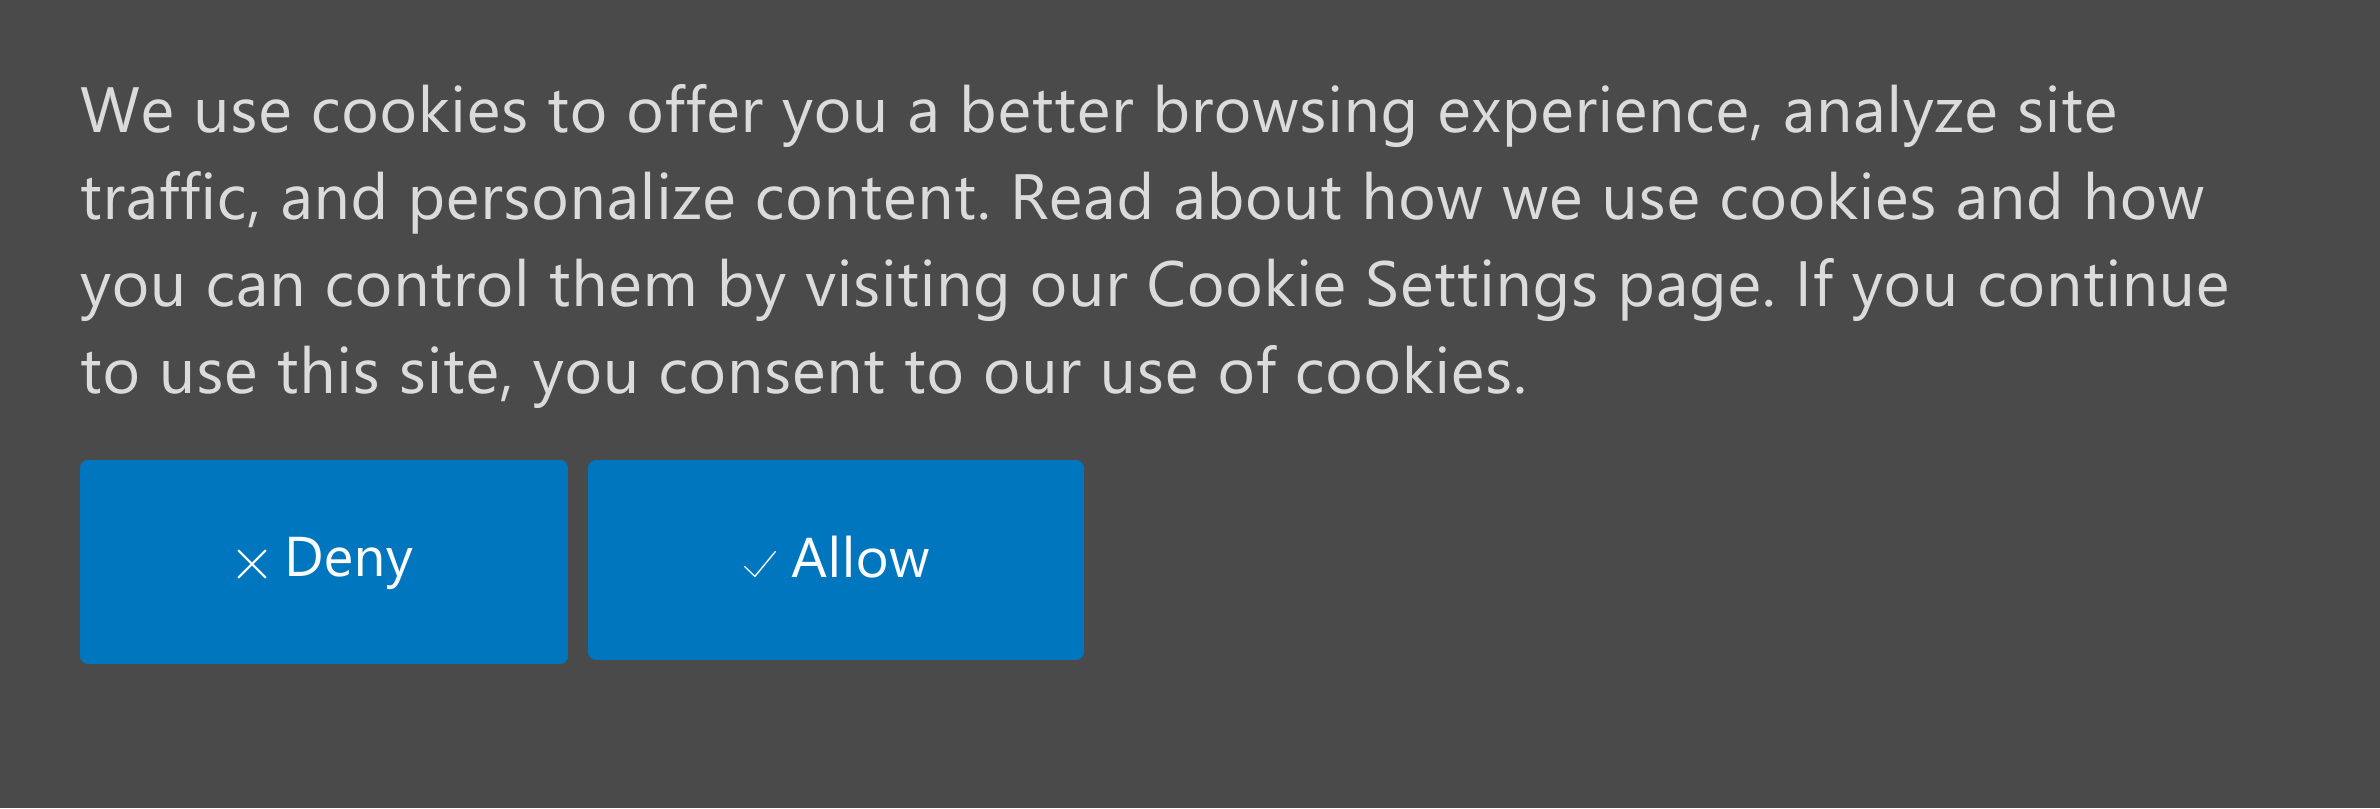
import math
import cairo


def write_spaced(ctx, x, y, s, letter, word):
	ctx.move_to(x, y)
	for ch in s:
		ctx.show_text(ch)
		ctx.rel_move_to(letter + word * (ch == ' '), 0)

def round_path(ctx, x, y, w, h, r):
	ctx.new_sub_path()
	for i, (u, v) in enumerate([(x + w - r, y + h - r), (x + r, y + h - r), (x + r, y + r), (x + w - r, y + r)]):
		ctx.arc(u, v, r, i * math.pi / 2, (i + 1) * math.pi / 2)
	ctx.close_path()

def paste(ctx, path, x, y, w, h):
	ctx.save()
	ctx.set_source_surface(cairo.ImageSurface.create_from_png(path), x, y)
	ctx.rectangle(x, y, w, h)
	ctx.fill()
	ctx.restore()

def draw(ctx):
	ctx.set_source_rgb(1, 1, 1)
	ctx.paint()
	ctx.set_source_rgb(0.29, 0.29, 0.29)
	ctx.rectangle(0, 0, 2380, 808)
	ctx.fill()
	ctx.select_font_face('Segoe UI')
	ctx.set_font_size(64)
	ctx.set_source_rgb(0.859, 0.859, 0.859)
	for x, y, s in [
		(80, 132, 'We use cookies to offer you a better browsing experience, analyze site'),
		(80, 219, 'traffic, and personalize content. Read about how we use cookies and how'),
		(80, 306, 'you can control them by visiting our Cookie Settings page. If you continue'),
		(80, 393, 'to use this site, you consent to our use of cookies.'),
	]:
		write_spaced(ctx, x, y, s, 0.8, 0)
	ctx.set_source_rgb(0, 0.463, 0.745)
	round_path(ctx, 82, 462, 484, 200, 6)
	ctx.fill_preserve()
	ctx.set_line_width(4)
	ctx.stroke()
	paste(ctx, 'media/1.png', 237, 549, 30, 30)
	ctx.set_font_size(56)
	ctx.set_source_rgb(0.988, 0.988, 0.988)
	write_spaced(ctx, 284, 576, 'Deny', 0.5, 0)
	ctx.set_source_rgb(0, 0.463, 0.745)
	round_path(ctx, 590, 462, 492, 196, 6)
	ctx.fill_preserve()
	ctx.stroke()
	paste(ctx, 'media/2.png', 744, 551, 32, 27)
	ctx.set_source_rgb(0.988, 0.988, 0.988)
	write_spaced(ctx, 791, 577, 'Allow', 0.5, 0)


surface = cairo.ImageSurface(cairo.FORMAT_RGB24, 2380, 809)
ctx = cairo.Context(surface)
options = cairo.FontOptions()
options.set_hint_metrics(cairo.HINT_METRICS_OFF)
options.set_hint_style(cairo.HINT_STYLE_NONE)
ctx.set_font_options(options)
ctx.set_miter_limit(4)
draw(ctx)
surface.write_to_png('image.png')
